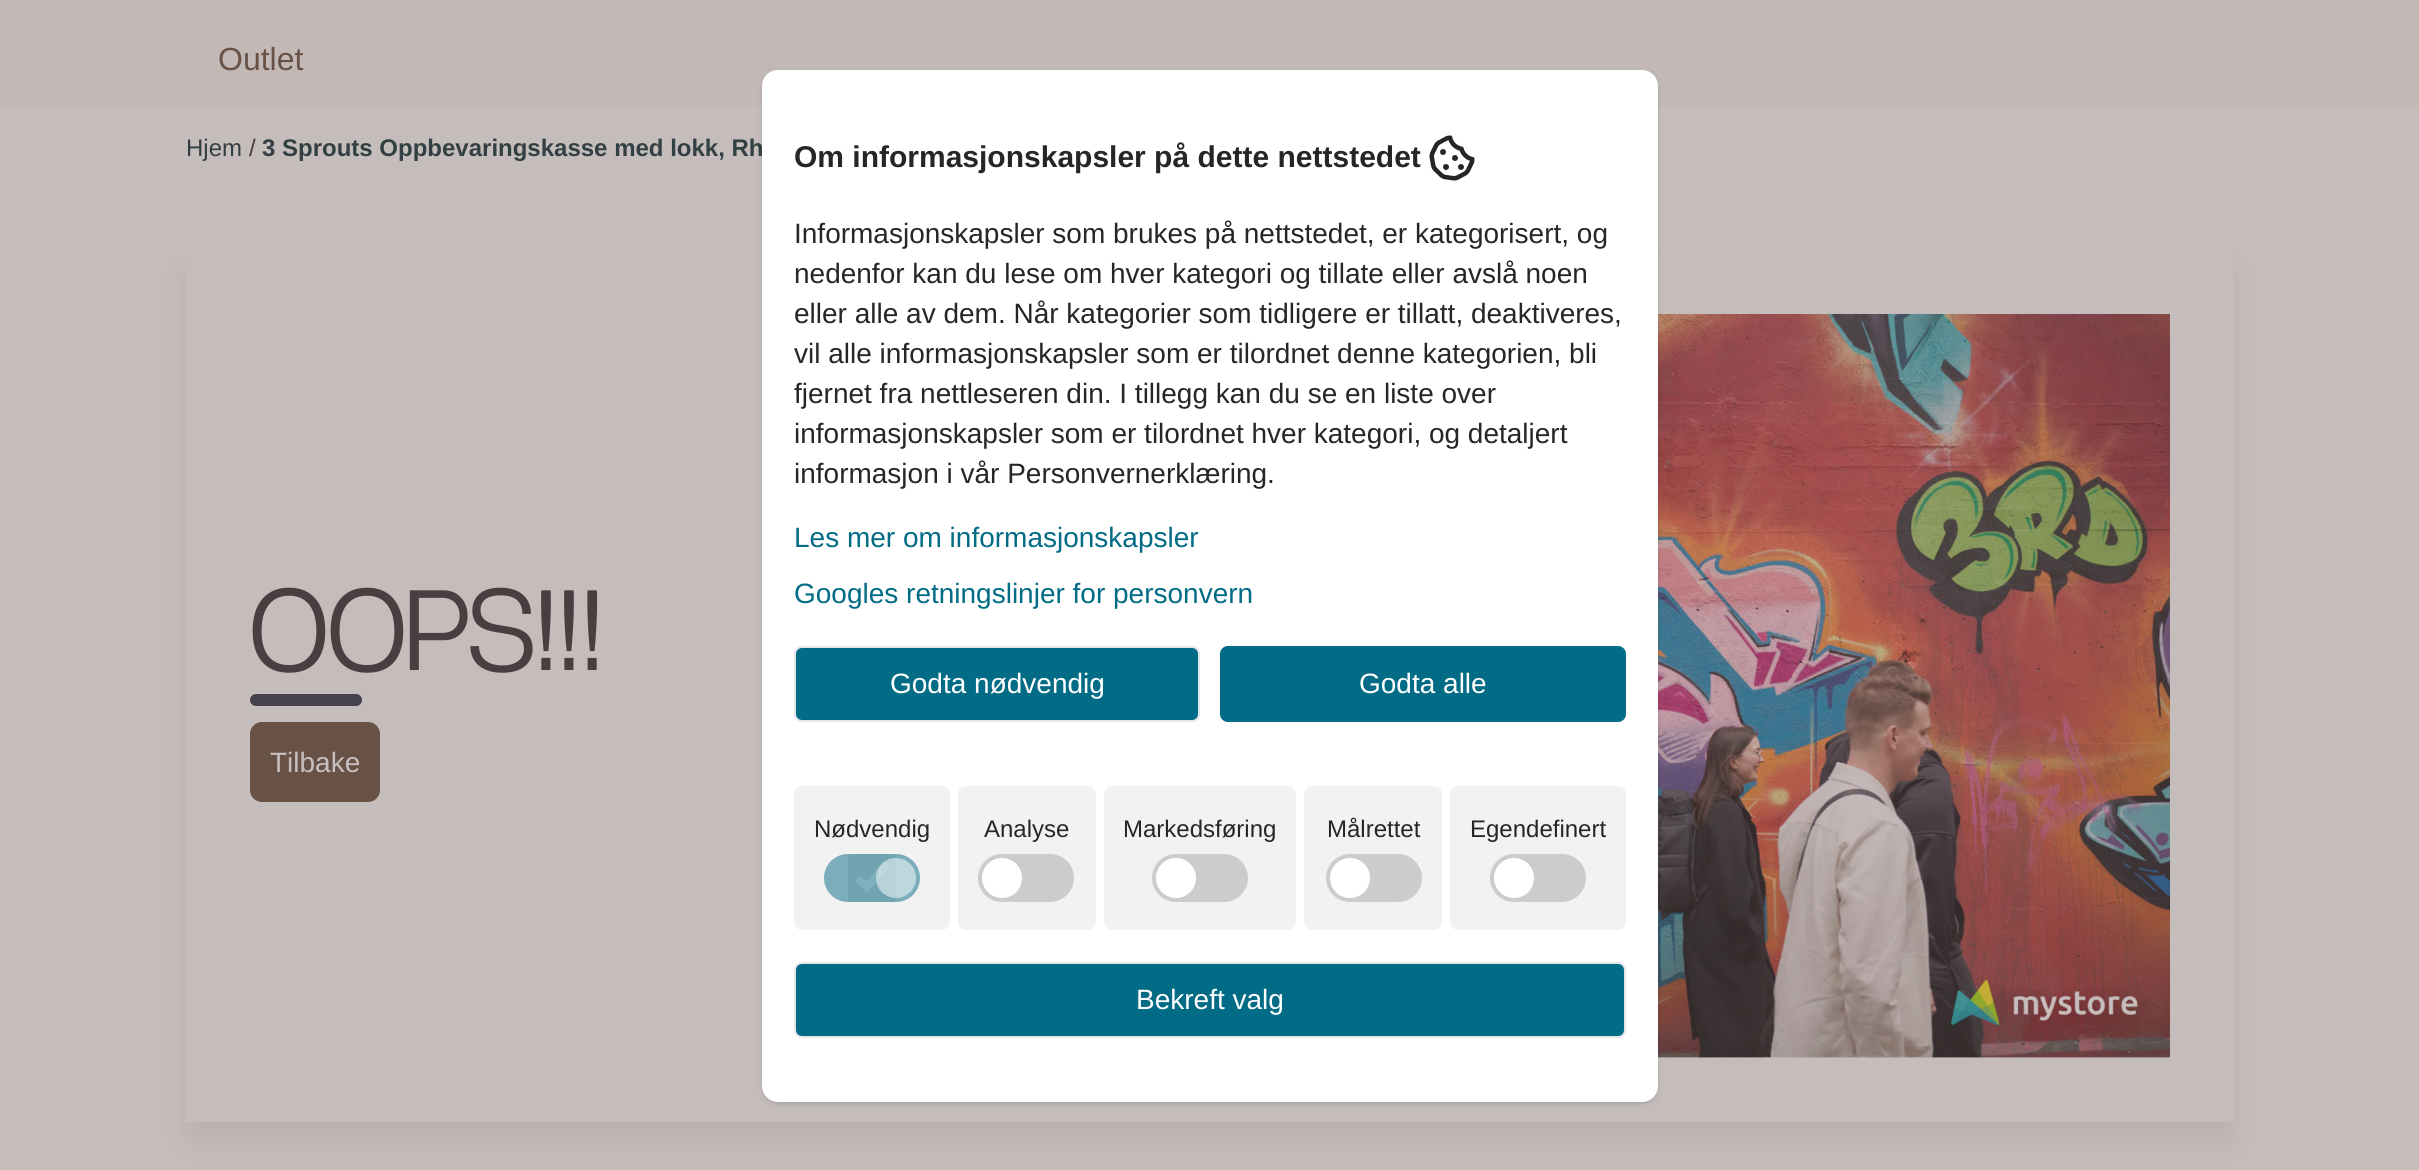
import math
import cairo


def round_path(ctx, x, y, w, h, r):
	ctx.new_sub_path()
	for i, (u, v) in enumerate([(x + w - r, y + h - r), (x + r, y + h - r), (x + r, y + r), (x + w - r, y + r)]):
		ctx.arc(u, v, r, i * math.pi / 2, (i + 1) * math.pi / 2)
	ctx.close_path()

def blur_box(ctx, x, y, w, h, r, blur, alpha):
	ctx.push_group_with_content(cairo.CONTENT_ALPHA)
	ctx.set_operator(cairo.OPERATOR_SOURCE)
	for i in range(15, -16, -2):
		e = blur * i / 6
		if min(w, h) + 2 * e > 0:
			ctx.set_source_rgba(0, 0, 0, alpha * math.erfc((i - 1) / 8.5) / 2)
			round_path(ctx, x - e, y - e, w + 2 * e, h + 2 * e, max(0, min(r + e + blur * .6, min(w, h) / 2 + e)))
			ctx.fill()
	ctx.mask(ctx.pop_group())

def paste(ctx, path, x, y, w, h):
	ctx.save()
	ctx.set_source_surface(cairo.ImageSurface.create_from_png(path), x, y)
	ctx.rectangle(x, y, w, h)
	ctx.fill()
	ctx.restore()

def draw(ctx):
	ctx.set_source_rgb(0.773, 0.737, 0.737)
	ctx.paint()
	ctx.set_source_rgb(0.761, 0.722, 0.71)
	ctx.rectangle(0, 0, 2419, 106)
	ctx.fill()
	ctx.select_font_face('Liberation Sans')
	ctx.set_font_size(32)
	ctx.set_source_rgb(0.408, 0.322, 0.275)
	ctx.move_to(218, 70)
	ctx.show_text('Outlet')
	ctx.set_font_size(24)
	ctx.set_source_rgb(0.2, 0.251, 0.263)
	ctx.move_to(186, 156)
	ctx.show_text('Hjem')
	ctx.set_source_rgb(0.282, 0.251, 0.251)
	ctx.move_to(249, 156)
	ctx.show_text('/')
	ctx.select_font_face('Liberation Sans', cairo.FONT_SLANT_NORMAL, cairo.FONT_WEIGHT_BOLD)
	ctx.set_source_rgb(0.2, 0.251, 0.263)
	ctx.move_to(262, 156)
	ctx.show_text('3 Sprouts Oppbevaringskasse med lokk, Rh')
	ctx.save()
	ctx.set_fill_rule(cairo.FILL_RULE_EVEN_ODD)
	ctx.new_path()
	ctx.move_to(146, 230)
	ctx.line_to(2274, 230)
	ctx.line_to(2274, 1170)
	ctx.line_to(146, 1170)
	ctx.close_path()
	ctx.move_to(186, 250)
	ctx.line_to(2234, 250)
	ctx.line_to(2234, 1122)
	ctx.line_to(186, 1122)
	ctx.close_path()
	ctx.clip()
	ctx.set_source_rgb(0.196, 0.161, 0.161)
	blur_box(ctx, 192, 276, 2036, 860, 0, 15, 0.1)
	ctx.restore()
	ctx.select_font_face('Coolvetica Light')
	ctx.set_font_size(120)
	ctx.set_source_rgb(0.282, 0.251, 0.251)
	ctx.move_to(250, 670)
	ctx.show_text('OOPS!!!')
	ctx.set_source_rgb(0.267, 0.259, 0.29)
	round_path(ctx, 250, 694, 112, 12, 6)
	ctx.fill()
	ctx.set_source_rgb(0.408, 0.322, 0.275)
	round_path(ctx, 250, 722, 130, 80, 12)
	ctx.fill()
	ctx.select_font_face('Liberation Sans')
	ctx.set_font_size(28)
	ctx.set_source_rgb(0.784, 0.753, 0.753)
	ctx.move_to(270, 772)
	ctx.show_text('Tilbake')
	paste(ctx, 'media/1.png', 1658, 314, 512, 744)
	ctx.set_source_rgb(0, 0, 0)
	blur_box(ctx, 764, 74, 892, 1028, 14, 2, 0.1)
	blur_box(ctx, 762, 72, 896, 1032, 16, 3, 0.1)
	ctx.set_source_rgb(1, 1, 1)
	round_path(ctx, 762, 70, 896, 1032, 16)
	ctx.fill()
	ctx.select_font_face('Liberation Sans', cairo.FONT_SLANT_NORMAL, cairo.FONT_WEIGHT_BOLD)
	ctx.set_font_size(30)
	ctx.set_source_rgb(0.149, 0.149, 0.149)
	ctx.move_to(794, 167)
	ctx.show_text('Om informasjonskapsler på dette nettstedet')
	paste(ctx, 'media/2.png', 1429, 135, 46, 46)
	ctx.select_font_face('Liberation Sans')
	ctx.set_font_size(28)
	for x, y, s in [
		(794, 243, 'Informasjonskapsler som brukes på nettstedet, er kategorisert, og'),
		(794, 283, 'nedenfor kan du lese om hver kategori og tillate eller avslå noen'),
		(794, 323, 'eller alle av dem. Når kategorier som tidligere er tillatt, deaktiveres,'),
		(794, 363, 'vil alle informasjonskapsler som er tilordnet denne kategorien, bli'),
		(794, 403, 'fjernet fra nettleseren din. I tillegg kan du se en liste over'),
		(794, 443, 'informasjonskapsler som er tilordnet hver kategori, og detaljert'),
		(794, 483, 'informasjon i vår Personvernerklæring.'),
	]:
		ctx.move_to(x, y)
		ctx.show_text(s)
	ctx.set_source_rgb(0.008, 0.42, 0.522)
	ctx.move_to(794, 547)
	ctx.show_text('Les mer om informasjonskapsler')
	ctx.move_to(794, 603)
	ctx.show_text('Googles retningslinjer for personvern')
	round_path(ctx, 795, 647, 404, 74, 7)
	ctx.fill_preserve()
	ctx.set_source_rgb(0.898, 0.906, 0.922)
	ctx.stroke()
	ctx.set_source_rgb(1, 1, 1)
	ctx.move_to(890, 693)
	ctx.show_text('Godta nødvendig')
	ctx.set_source_rgb(0.008, 0.42, 0.522)
	round_path(ctx, 1220, 646, 406, 76, 8)
	ctx.fill()
	ctx.set_source_rgb(1, 1, 1)
	ctx.move_to(1359, 693)
	ctx.show_text('Godta alle')
	ctx.set_source_rgb(0.949, 0.949, 0.949)
	round_path(ctx, 794, 786, 156, 144, 8)
	ctx.fill()
	ctx.set_font_size(24)
	ctx.set_source_rgb(0.149, 0.149, 0.149)
	ctx.move_to(814, 837)
	ctx.show_text('Nødvendig')
	ctx.set_source_rgb(0.875, 0.875, 0.875)
	round_path(ctx, 848, 854, 48, 48, 4)
	ctx.fill()
	ctx.new_path()
	ctx.move_to(857.5, 878)
	ctx.line_to(867, 887.5)
	ctx.line_to(886.5, 863.5)
	ctx.set_source_rgb(0.976, 0.976, 0.976)
	ctx.set_line_width(7.7)
	ctx.stroke()
	ctx.set_source_rgba(0.008, 0.42, 0.522, 0.5)
	round_path(ctx, 824, 854, 96, 48, 24)
	ctx.fill()
	ctx.set_source_rgba(1, 1, 1, 0.5)
	ctx.arc(896, 878, 20, 0, 2 * math.pi)
	ctx.fill()
	ctx.set_source_rgb(0.949, 0.949, 0.949)
	round_path(ctx, 958, 786, 138, 144, 8)
	ctx.fill()
	ctx.set_source_rgb(0.149, 0.149, 0.149)
	ctx.move_to(984, 837)
	ctx.show_text('Analyse')
	ctx.set_source_rgb(0.8, 0.8, 0.8)
	round_path(ctx, 978, 854, 96, 48, 24)
	ctx.fill()
	ctx.set_source_rgb(1, 1, 1)
	ctx.arc(1002, 878, 20, 0, 2 * math.pi)
	ctx.fill()
	ctx.set_source_rgb(0.949, 0.949, 0.949)
	round_path(ctx, 1104, 786, 192, 144, 8)
	ctx.fill()
	ctx.set_source_rgb(0.149, 0.149, 0.149)
	ctx.move_to(1123, 837)
	ctx.show_text('Markedsføring')
	ctx.set_source_rgb(0.8, 0.8, 0.8)
	round_path(ctx, 1152, 854, 96, 48, 24)
	ctx.fill()
	ctx.set_source_rgb(1, 1, 1)
	ctx.arc(1176, 878, 20, 0, 2 * math.pi)
	ctx.fill()
	ctx.set_source_rgb(0.949, 0.949, 0.949)
	round_path(ctx, 1304, 786, 138, 144, 8)
	ctx.fill()
	ctx.set_source_rgb(0.149, 0.149, 0.149)
	ctx.move_to(1327, 837)
	ctx.show_text('Målrettet')
	ctx.set_source_rgb(0.8, 0.8, 0.8)
	round_path(ctx, 1326, 854, 96, 48, 24)
	ctx.fill()
	ctx.set_source_rgb(1, 1, 1)
	ctx.arc(1350, 878, 20, 0, 2 * math.pi)
	ctx.fill()
	ctx.set_source_rgb(0.949, 0.949, 0.949)
	round_path(ctx, 1450, 786, 176, 144, 8)
	ctx.fill()
	ctx.set_source_rgb(0.149, 0.149, 0.149)
	ctx.move_to(1470, 837)
	ctx.show_text('Egendefinert')
	ctx.set_source_rgb(0.8, 0.8, 0.8)
	round_path(ctx, 1490, 854, 96, 48, 24)
	ctx.fill()
	ctx.set_source_rgb(1, 1, 1)
	ctx.arc(1514, 878, 20, 0, 2 * math.pi)
	ctx.fill()
	ctx.set_source_rgb(0.008, 0.42, 0.522)
	round_path(ctx, 795, 963, 830, 74, 7)
	ctx.fill_preserve()
	ctx.set_source_rgb(0.898, 0.906, 0.922)
	ctx.set_line_width(2)
	ctx.stroke()
	ctx.set_font_size(28)
	ctx.set_source_rgb(1, 1, 1)
	ctx.move_to(1136, 1009)
	ctx.show_text('Bekreft valg')


surface = cairo.ImageSurface(cairo.FORMAT_RGB24, 2419, 1170)
ctx = cairo.Context(surface)
options = cairo.FontOptions()
options.set_hint_metrics(cairo.HINT_METRICS_OFF)
options.set_hint_style(cairo.HINT_STYLE_NONE)
ctx.set_font_options(options)
ctx.set_miter_limit(4)
draw(ctx)
surface.write_to_png('image.png')
